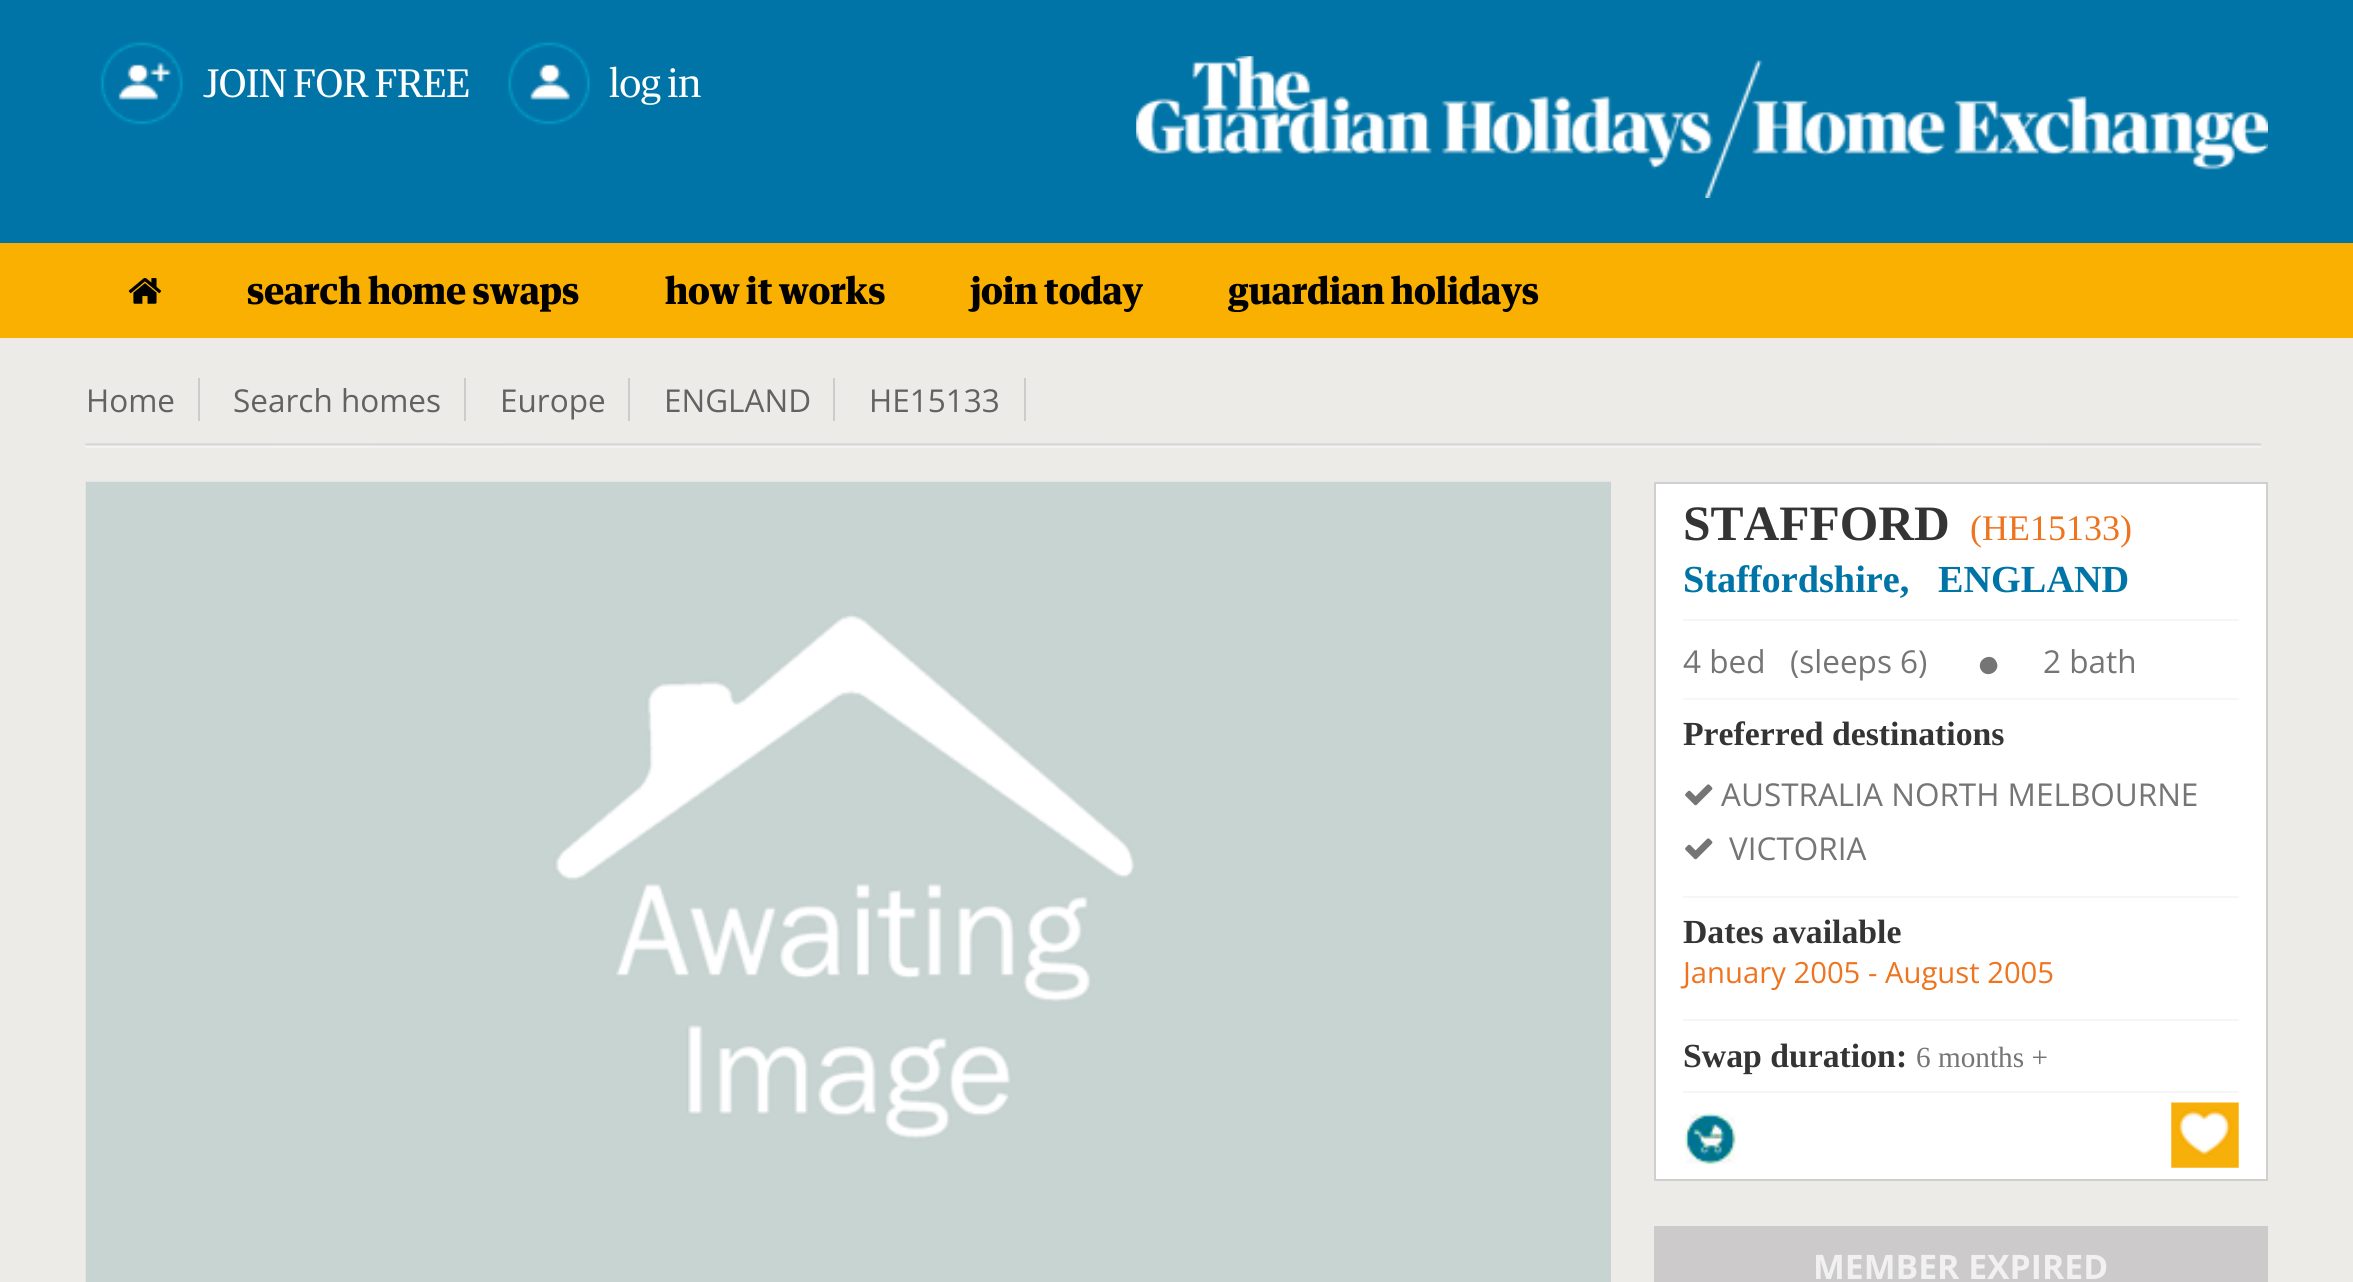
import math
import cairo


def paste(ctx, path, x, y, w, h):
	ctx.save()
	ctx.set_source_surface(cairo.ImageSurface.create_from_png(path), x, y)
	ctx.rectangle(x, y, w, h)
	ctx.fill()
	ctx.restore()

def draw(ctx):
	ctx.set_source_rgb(0.922, 0.918, 0.91)
	ctx.paint()
	ctx.set_source_rgb(0, 0.455, 0.651)
	ctx.rectangle(0, 0, 2353, 243)
	ctx.fill()
	paste(ctx, 'media/1.png', 100, 42, 83, 83)
	ctx.select_font_face('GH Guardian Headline')
	ctx.set_font_size(38.25)
	ctx.set_source_rgb(1, 1, 1)
	ctx.move_to(203, 97)
	ctx.show_text('JOIN FOR FREE')
	paste(ctx, 'media/2.png', 508, 42, 82, 83)
	ctx.move_to(609, 97)
	ctx.show_text('log in')
	paste(ctx, 'media/3.png', 1136, 56, 1132, 142)
	ctx.set_source_rgb(0.976, 0.69, 0)
	ctx.rectangle(0, 243, 2353, 95)
	ctx.fill()
	paste(ctx, 'media/4.png', 128, 278, 34, 26)
	ctx.select_font_face('GH Guardian Headline', cairo.FONT_SLANT_NORMAL, cairo.FONT_WEIGHT_BOLD)
	ctx.set_font_size(36)
	ctx.set_source_rgb(0, 0, 0)
	for x, y, s in [
		(247, 304, 'search home swaps'),
		(665, 304, 'how it works'),
		(971, 304, 'join today'),
		(1228, 304, 'guardian holidays'),
	]:
		ctx.move_to(x, y)
		ctx.show_text(s)
	ctx.select_font_face('Open Sans')
	ctx.set_font_size(31.5)
	ctx.set_source_rgb(0.388, 0.38, 0.38)
	ctx.move_to(86, 412)
	ctx.show_text('Home')
	ctx.set_source_rgb(0.8, 0.8, 0.8)
	ctx.rectangle(198, 378, 2, 43)
	ctx.fill()
	ctx.set_source_rgb(0.388, 0.38, 0.38)
	ctx.move_to(233, 412)
	ctx.show_text('Search homes')
	ctx.set_source_rgb(0.8, 0.8, 0.8)
	ctx.rectangle(464, 378, 2, 43)
	ctx.fill()
	ctx.set_source_rgb(0.388, 0.38, 0.38)
	ctx.move_to(500, 412)
	ctx.show_text('Europe')
	ctx.set_source_rgb(0.8, 0.8, 0.8)
	ctx.rectangle(628, 378, 2, 43)
	ctx.fill()
	ctx.set_source_rgb(0.388, 0.38, 0.38)
	ctx.move_to(664, 412)
	ctx.show_text('ENGLAND')
	ctx.set_source_rgb(0.8, 0.8, 0.8)
	ctx.rectangle(833, 378, 2, 43)
	ctx.fill()
	ctx.set_source_rgb(0.388, 0.38, 0.38)
	ctx.move_to(869, 412)
	ctx.show_text('HE15133')
	ctx.set_source_rgb(0.8, 0.8, 0.8)
	ctx.rectangle(1024, 378, 2, 43)
	ctx.fill()
	paste(ctx, 'media/5.png', 85, 443, 2177, 5)
	paste(ctx, 'media/6.png', 85, 481, 1526, 801)
	ctx.set_source_rgb(1, 1, 1)
	ctx.rectangle(1655, 483, 612, 697)
	ctx.fill_preserve()
	ctx.set_source_rgb(0.812, 0.812, 0.812)
	ctx.stroke()
	ctx.select_font_face('Liberation Serif', cairo.FONT_SLANT_NORMAL, cairo.FONT_WEIGHT_BOLD)
	ctx.set_font_size(49.5)
	ctx.set_source_rgb(0.204, 0.204, 0.204)
	ctx.move_to(1683, 540)
	ctx.show_text('STAFFORD')
	ctx.select_font_face('Liberation Serif')
	ctx.set_font_size(36)
	ctx.set_source_rgb(0.933, 0.455, 0.125)
	ctx.move_to(1970, 540)
	ctx.show_text('(HE15133)')
	ctx.select_font_face('Liberation Serif', cairo.FONT_SLANT_NORMAL, cairo.FONT_WEIGHT_BOLD)
	ctx.set_font_size(38.25)
	ctx.set_source_rgb(0, 0.455, 0.651)
	ctx.move_to(1683, 592)
	ctx.show_text('Staffordshire,   ENGLAND')
	ctx.set_source_rgb(0.961, 0.961, 0.961)
	ctx.rectangle(1683, 619, 556, 2)
	ctx.fill()
	ctx.select_font_face('Open Sans')
	ctx.set_font_size(31.5)
	ctx.set_source_rgb(0.459, 0.459, 0.459)
	ctx.move_to(1683, 673)
	ctx.show_text('4 bed   (sleeps 6)')
	ctx.new_path()
	ctx.move_to(1996, 661)
	ctx.curve_to(2002, 671, 1987, 679.5, 1981, 670)
	ctx.curve_to(1975.5, 660, 1990.5, 651.5, 1996, 661)
	ctx.close_path()
	ctx.fill()
	ctx.move_to(2043, 673)
	ctx.show_text('2 bath')
	ctx.set_source_rgb(0.961, 0.961, 0.961)
	ctx.rectangle(1683, 698, 556, 2)
	ctx.fill()
	ctx.select_font_face('Liberation Serif', cairo.FONT_SLANT_NORMAL, cairo.FONT_WEIGHT_BOLD)
	ctx.set_font_size(33.75)
	ctx.set_source_rgb(0.204, 0.204, 0.204)
	ctx.move_to(1683, 745)
	ctx.show_text('Preferred destinations')
	paste(ctx, 'media/7.png', 1685, 784, 28, 22)
	ctx.select_font_face('Open Sans')
	ctx.set_font_size(31.5)
	ctx.set_source_rgb(0.459, 0.459, 0.459)
	ctx.move_to(1721, 806)
	ctx.show_text('AUSTRALIA NORTH MELBOURNE')
	paste(ctx, 'media/7.png', 1685, 838, 28, 22)
	ctx.move_to(1729, 860)
	ctx.show_text('VICTORIA')
	ctx.set_source_rgb(0.961, 0.961, 0.961)
	ctx.rectangle(1683, 896, 556, 2)
	ctx.fill()
	ctx.select_font_face('Liberation Serif', cairo.FONT_SLANT_NORMAL, cairo.FONT_WEIGHT_BOLD)
	ctx.set_font_size(33.75)
	ctx.set_source_rgb(0.204, 0.204, 0.204)
	ctx.move_to(1683, 943)
	ctx.show_text('Dates available')
	ctx.select_font_face('Open Sans')
	ctx.set_font_size(29.25)
	ctx.set_source_rgb(0.933, 0.455, 0.125)
	ctx.move_to(1683, 983)
	ctx.show_text('January 2005 - August 2005')
	ctx.set_source_rgb(0.961, 0.961, 0.961)
	ctx.rectangle(1683, 1019, 556, 2)
	ctx.fill()
	ctx.select_font_face('Liberation Serif', cairo.FONT_SLANT_NORMAL, cairo.FONT_WEIGHT_BOLD)
	ctx.set_font_size(33.75)
	ctx.set_source_rgb(0.204, 0.204, 0.204)
	ctx.move_to(1683, 1067)
	ctx.show_text('Swap duration:')
	ctx.select_font_face('Liberation Serif')
	ctx.set_font_size(29.25)
	ctx.set_source_rgb(0.459, 0.459, 0.459)
	ctx.move_to(1916, 1067)
	ctx.show_text('6 months +')
	ctx.set_source_rgb(0.961, 0.961, 0.961)
	ctx.rectangle(1683, 1091, 556, 2)
	ctx.fill()
	paste(ctx, 'media/8.png', 1684, 1113, 52, 51)
	paste(ctx, 'media/9.png', 2171, 1102, 68, 66)
	ctx.set_source_rgb(0.8, 0.792, 0.792)
	ctx.rectangle(1654, 1226, 614, 56)
	ctx.fill()
	ctx.select_font_face('Open Sans', cairo.FONT_SLANT_NORMAL, cairo.FONT_WEIGHT_BOLD)
	ctx.set_font_size(33.75)
	ctx.set_source_rgb(0.945, 0.945, 0.945)
	ctx.move_to(1813, 1279)
	ctx.show_text('MEMBER EXPIRED')


surface = cairo.ImageSurface(cairo.FORMAT_RGB24, 2353, 1282)
ctx = cairo.Context(surface)
options = cairo.FontOptions()
options.set_hint_metrics(cairo.HINT_METRICS_OFF)
options.set_hint_style(cairo.HINT_STYLE_NONE)
ctx.set_font_options(options)
ctx.set_miter_limit(4)
draw(ctx)
surface.write_to_png('image.png')
